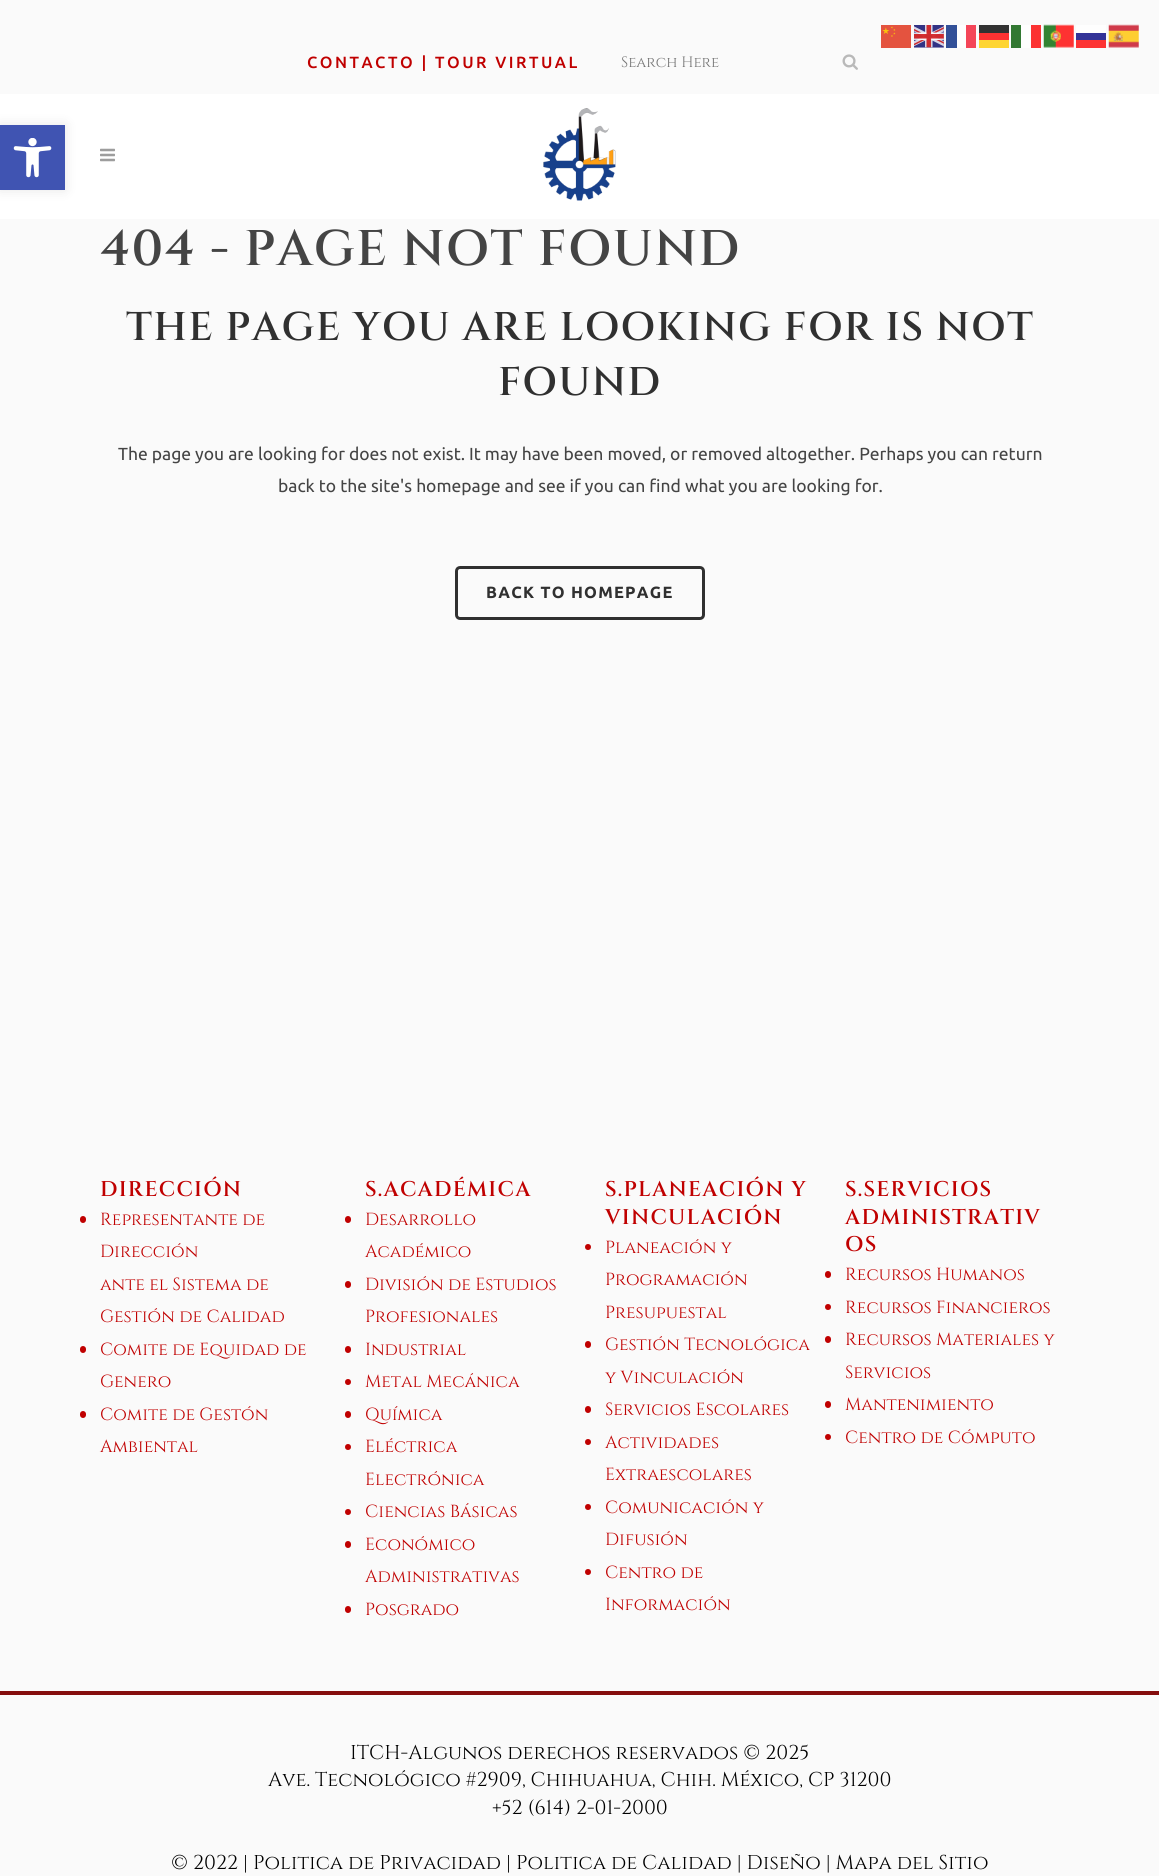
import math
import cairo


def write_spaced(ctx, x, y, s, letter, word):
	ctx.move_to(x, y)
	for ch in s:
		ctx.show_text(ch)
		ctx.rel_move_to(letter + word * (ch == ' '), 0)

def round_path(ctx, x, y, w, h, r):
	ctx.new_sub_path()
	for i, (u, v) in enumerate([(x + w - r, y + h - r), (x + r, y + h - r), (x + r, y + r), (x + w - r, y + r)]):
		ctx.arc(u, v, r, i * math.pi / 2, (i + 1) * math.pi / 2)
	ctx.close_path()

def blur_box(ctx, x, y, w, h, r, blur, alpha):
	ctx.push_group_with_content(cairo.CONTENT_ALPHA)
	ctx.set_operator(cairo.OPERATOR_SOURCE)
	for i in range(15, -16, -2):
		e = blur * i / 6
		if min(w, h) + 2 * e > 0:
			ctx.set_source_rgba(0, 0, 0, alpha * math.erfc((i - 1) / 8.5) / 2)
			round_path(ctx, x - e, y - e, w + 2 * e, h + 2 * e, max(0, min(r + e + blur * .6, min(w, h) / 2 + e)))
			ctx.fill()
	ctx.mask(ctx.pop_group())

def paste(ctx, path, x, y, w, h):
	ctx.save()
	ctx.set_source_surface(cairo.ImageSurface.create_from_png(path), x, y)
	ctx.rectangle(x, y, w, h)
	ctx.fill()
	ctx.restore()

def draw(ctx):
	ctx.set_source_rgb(0.98, 0.98, 0.98)
	ctx.paint()
	paste(ctx, 'media/1.png', 881, 25, 30, 23)
	paste(ctx, 'media/2.png', 914, 25, 30, 23)
	ctx.set_source_rgb(0.196, 0.314, 0.596)
	ctx.rectangle(946, 25, 11, 23)
	ctx.fill()
	ctx.set_source_rgb(0.996, 0.996, 0.996)
	ctx.rectangle(957, 25, 9, 23)
	ctx.fill()
	ctx.set_source_rgb(0.957, 0.271, 0.345)
	ctx.rectangle(966, 25, 10, 23)
	ctx.fill()
	ctx.set_source_rgb(0.196, 0.196, 0.196)
	ctx.rectangle(979, 25, 30, 8)
	ctx.fill()
	ctx.set_source_rgb(0.196, 0.471, 0.196)
	ctx.rectangle(1011, 25, 10, 23)
	ctx.fill()
	ctx.set_source_rgb(0.996, 0.996, 0.996)
	ctx.rectangle(1021, 25, 10, 23)
	ctx.fill()
	ctx.set_source_rgb(0.988, 0.196, 0.196)
	ctx.rectangle(1031, 25, 10, 23)
	ctx.fill()
	paste(ctx, 'media/3.png', 1043, 24, 31, 24)
	ctx.set_source_rgb(0.996, 0.996, 0.996)
	ctx.rectangle(1076, 25, 30, 8)
	ctx.fill()
	paste(ctx, 'media/4.png', 1108, 24, 31, 24)
	ctx.set_source_rgb(0.996, 0.196, 0.196)
	ctx.rectangle(979, 33, 30, 7)
	ctx.fill()
	ctx.set_source_rgb(0.2, 0.2, 0.592)
	ctx.rectangle(1076, 33, 30, 7)
	ctx.fill()
	ctx.set_source_rgb(0.996, 0.835, 0.196)
	ctx.rectangle(979, 40, 30, 8)
	ctx.fill()
	ctx.set_source_rgb(0.992, 0.2, 0.2)
	ctx.rectangle(1076, 40, 30, 8)
	ctx.fill()
	ctx.set_source_rgb(1, 1, 1)
	ctx.rectangle(0, 94, 1159, 125)
	ctx.fill()
	ctx.set_source_rgb(0, 0, 0)
	blur_box(ctx, 0, 125, 65, 65, 0, 6, 0.1)
	ctx.set_source_rgb(0.251, 0.329, 0.698)
	ctx.rectangle(0, 125, 65, 65)
	ctx.fill()
	paste(ctx, 'media/5.png', 13, 138, 39, 40)
	ctx.select_font_face('Ubuntu Medium')
	ctx.set_font_size(16.25)
	ctx.set_source_rgb(0.753, 0, 0)
	write_spaced(ctx, 307, 68, 'CONTACTO | TOUR VIRTUAL', 2.5, 0)
	ctx.select_font_face('Cinzel')
	ctx.set_font_size(15)
	ctx.set_source_rgb(0.459, 0.459, 0.459)
	ctx.move_to(621, 67)
	ctx.show_text('Search Here')
	paste(ctx, 'media/6.png', 842, 54, 16, 16)
	paste(ctx, 'media/7.png', 100, 148, 15, 14)
	paste(ctx, 'media/8.png', 543, 108, 73, 93)
	ctx.select_font_face('Cinzel SemiBold')
	ctx.set_font_size(50)
	ctx.set_source_rgb(0.267, 0.267, 0.267)
	write_spaced(ctx, 100, 265, '404 - PAGE NOT FOUND', 1.25, 0)
	ctx.set_font_size(40)
	ctx.set_source_rgb(0.188, 0.188, 0.188)
	write_spaced(ctx, 126, 340, 'THE PAGE YOU ARE LOOKING FOR IS NOT', 1.25, 0)
	write_spaced(ctx, 498, 395, 'FOUND', 1.25, 0)
	ctx.select_font_face('Ubuntu')
	ctx.set_font_size(17.5)
	ctx.set_source_rgb(0.267, 0.267, 0.267)
	ctx.move_to(118, 460)
	ctx.show_text('The page you are looking for does not exist. It may have been moved, or removed altogether. Perhaps you can return')
	ctx.move_to(278, 492)
	ctx.show_text('back to the site\'s homepage and see if you can find what you are looking for.')
	round_path(ctx, 456.5, 567.5, 247, 51, 3.5)
	ctx.set_source_rgb(0.188, 0.188, 0.188)
	ctx.set_line_width(3)
	ctx.stroke()
	ctx.select_font_face('Ubuntu', cairo.FONT_SLANT_NORMAL, cairo.FONT_WEIGHT_BOLD)
	ctx.set_font_size(16.25)
	write_spaced(ctx, 486, 598, 'BACK TO HOMEPAGE', 1.25, 0)
	ctx.select_font_face('Cinzel SemiBold')
	ctx.set_font_size(21.25)
	ctx.set_source_rgb(0.753, 0, 0)
	write_spaced(ctx, 100, 1196, 'DIRECCIÓN', 1.25, 0)
	round_path(ctx, 80, 1216, 6, 7, 3)
	ctx.fill()
	ctx.select_font_face('Cinzel')
	ctx.set_font_size(17.5)
	for x, y, s in [
		(100, 1225, 'Representante de'),
		(100, 1257, 'Dirección'),
		(100, 1290, 'ante el Sistema de'),
		(100, 1322, 'Gestión de Calidad'),
	]:
		ctx.move_to(x, y)
		ctx.show_text(s)
	round_path(ctx, 80, 1346, 6, 7, 3)
	ctx.fill()
	ctx.move_to(100, 1355)
	ctx.show_text('Comite de Equidad de')
	ctx.move_to(100, 1387)
	ctx.show_text('Genero')
	round_path(ctx, 80, 1411, 6, 7, 3)
	ctx.fill()
	ctx.move_to(100, 1420)
	ctx.show_text('Comite de Gestón')
	ctx.move_to(100, 1452)
	ctx.show_text('Ambiental')
	ctx.select_font_face('Cinzel SemiBold')
	ctx.set_font_size(21.25)
	write_spaced(ctx, 365, 1196, 'S.ACADÉMICA', 1.25, 0)
	round_path(ctx, 345, 1216, 6, 7, 3)
	ctx.fill()
	ctx.select_font_face('Cinzel')
	ctx.set_font_size(17.5)
	ctx.move_to(365, 1225)
	ctx.show_text('Desarrollo')
	ctx.move_to(365, 1257)
	ctx.show_text('Académico')
	round_path(ctx, 345, 1281, 6, 7, 3)
	ctx.fill()
	ctx.move_to(365, 1290)
	ctx.show_text('División de Estudios')
	ctx.move_to(365, 1322)
	ctx.show_text('Profesionales')
	round_path(ctx, 345, 1346, 6, 7, 3)
	ctx.fill()
	ctx.move_to(365, 1355)
	ctx.show_text('Industrial')
	ctx.new_path()
	ctx.arc(348, 1382, 3, 0, 2 * math.pi)
	ctx.fill()
	ctx.move_to(365, 1387)
	ctx.show_text('Metal Mecánica')
	round_path(ctx, 345, 1411, 6, 7, 3)
	ctx.fill()
	ctx.move_to(365, 1420)
	ctx.show_text('Química')
	ctx.new_path()
	ctx.arc(348, 1447, 3, 0, 2 * math.pi)
	ctx.fill()
	ctx.move_to(365, 1452)
	ctx.show_text('Eléctrica')
	ctx.move_to(365, 1485)
	ctx.show_text('Electrónica')
	ctx.new_path()
	ctx.arc(348, 1512, 3, 0, 2 * math.pi)
	ctx.fill()
	ctx.move_to(365, 1517)
	ctx.show_text('Ciencias Básicas')
	round_path(ctx, 345, 1541, 6, 7, 3)
	ctx.fill()
	ctx.move_to(365, 1550)
	ctx.show_text('Económico')
	ctx.move_to(365, 1582)
	ctx.show_text('Administrativas')
	round_path(ctx, 345, 1606, 6, 7, 3)
	ctx.fill()
	ctx.move_to(365, 1615)
	ctx.show_text('Posgrado')
	ctx.select_font_face('Cinzel SemiBold')
	ctx.set_font_size(21.25)
	write_spaced(ctx, 605, 1196, 'S.PLANEACIÓN Y', 1.25, 0)
	write_spaced(ctx, 605, 1224, 'VINCULACIÓN', 1.25, 0)
	ctx.new_path()
	ctx.arc(588, 1247, 3, 0, 2 * math.pi)
	ctx.fill()
	ctx.select_font_face('Cinzel')
	ctx.set_font_size(17.5)
	for x, y, s in [
		(605, 1253, 'Planeación y'),
		(605, 1285, 'Programación'),
		(605, 1318, 'Presupuestal'),
	]:
		ctx.move_to(x, y)
		ctx.show_text(s)
	round_path(ctx, 585, 1341, 6, 7, 3)
	ctx.fill()
	ctx.move_to(605, 1350)
	ctx.show_text('Gestión Tecnológica')
	ctx.move_to(605, 1383)
	ctx.show_text('y Vinculación')
	round_path(ctx, 585, 1406, 6, 7, 3)
	ctx.fill()
	ctx.move_to(605, 1415)
	ctx.show_text('Servicios Escolares')
	ctx.new_path()
	ctx.arc(588, 1442, 3, 0, 2 * math.pi)
	ctx.fill()
	ctx.move_to(605, 1448)
	ctx.show_text('Actividades')
	ctx.move_to(605, 1480)
	ctx.show_text('Extraescolares')
	ctx.new_path()
	ctx.arc(588, 1507, 3, 0, 2 * math.pi)
	ctx.fill()
	ctx.move_to(605, 1513)
	ctx.show_text('Comunicación y')
	ctx.move_to(605, 1545)
	ctx.show_text('Difusión')
	ctx.new_path()
	ctx.arc(588, 1572, 3, 0, 2 * math.pi)
	ctx.fill()
	ctx.move_to(605, 1578)
	ctx.show_text('Centro de')
	ctx.move_to(605, 1610)
	ctx.show_text('Información')
	ctx.select_font_face('Cinzel SemiBold')
	ctx.set_font_size(21.25)
	for x, y, s in [
		(845, 1196, 'S.SERVICIOS'),
		(845, 1224, 'ADMINISTRATIV'),
		(845, 1251, 'OS'),
	]:
		write_spaced(ctx, x, y, s, 1.25, 0)
	round_path(ctx, 825, 1271, 6, 7, 3)
	ctx.fill()
	ctx.select_font_face('Cinzel')
	ctx.set_font_size(17.5)
	ctx.move_to(845, 1280)
	ctx.show_text('Recursos Humanos')
	ctx.new_path()
	ctx.arc(828, 1307, 3, 0, 2 * math.pi)
	ctx.fill()
	ctx.move_to(845, 1313)
	ctx.show_text('Recursos Financieros')
	round_path(ctx, 825, 1336, 6, 7, 3)
	ctx.fill()
	ctx.move_to(845, 1345)
	ctx.show_text('Recursos Materiales y')
	ctx.move_to(845, 1378)
	ctx.show_text('Servicios')
	round_path(ctx, 825, 1401, 6, 7, 3)
	ctx.fill()
	ctx.move_to(845, 1410)
	ctx.show_text('Mantenimiento')
	ctx.new_path()
	ctx.arc(828, 1437, 3, 0, 2 * math.pi)
	ctx.fill()
	ctx.move_to(845, 1443)
	ctx.show_text('Centro de Cómputo')
	ctx.set_source_rgb(0.518, 0.051, 0.051)
	ctx.rectangle(0, 1691, 1159, 4)
	ctx.fill()
	ctx.set_font_size(20)
	ctx.set_source_rgb(0, 0, 0)
	for x, y, s in [
		(350, 1759, 'ITCH-Algunos derechos reservados © 2025'),
		(268, 1786, 'Ave. Tecnológico #2909, Chihuahua, Chih. México, CP 31200'),
		(492, 1814, '+52 (614) 2-01-2000'),
		(171, 1869, '© 2022 | Politica de Privacidad | Politica de Calidad | Diseño | Mapa del Sitio'),
	]:
		ctx.move_to(x, y)
		ctx.show_text(s)


surface = cairo.ImageSurface(cairo.FORMAT_RGB24, 1159, 1876)
ctx = cairo.Context(surface)
options = cairo.FontOptions()
options.set_hint_metrics(cairo.HINT_METRICS_OFF)
options.set_hint_style(cairo.HINT_STYLE_NONE)
ctx.set_font_options(options)
ctx.set_miter_limit(4)
draw(ctx)
surface.write_to_png('image.png')
